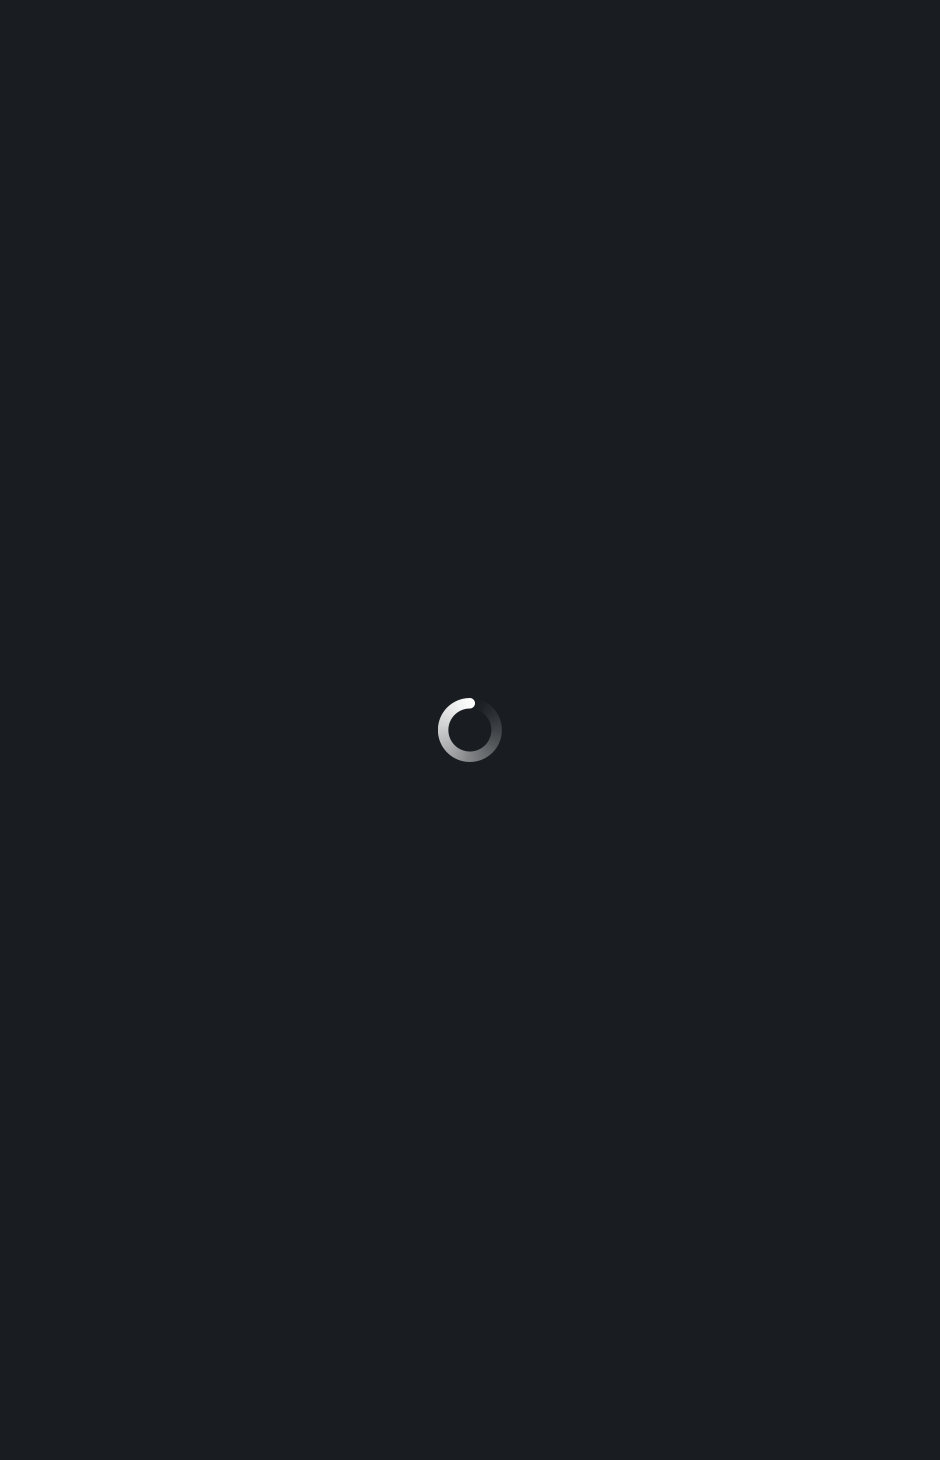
import math
import cairo


def paste(ctx, path, x, y, w, h):
	ctx.save()
	ctx.set_source_surface(cairo.ImageSurface.create_from_png(path), x, y)
	ctx.rectangle(x, y, w, h)
	ctx.fill()
	ctx.restore()

def draw(ctx):
	ctx.set_source_rgb(0.098, 0.114, 0.129)
	ctx.paint()
	paste(ctx, 'media/1.png', 438, 698, 64, 64)


surface = cairo.ImageSurface(cairo.FORMAT_RGB24, 940, 1460)
ctx = cairo.Context(surface)
options = cairo.FontOptions()
options.set_hint_metrics(cairo.HINT_METRICS_OFF)
options.set_hint_style(cairo.HINT_STYLE_NONE)
ctx.set_font_options(options)
ctx.set_miter_limit(4)
draw(ctx)
surface.write_to_png('image.png')
